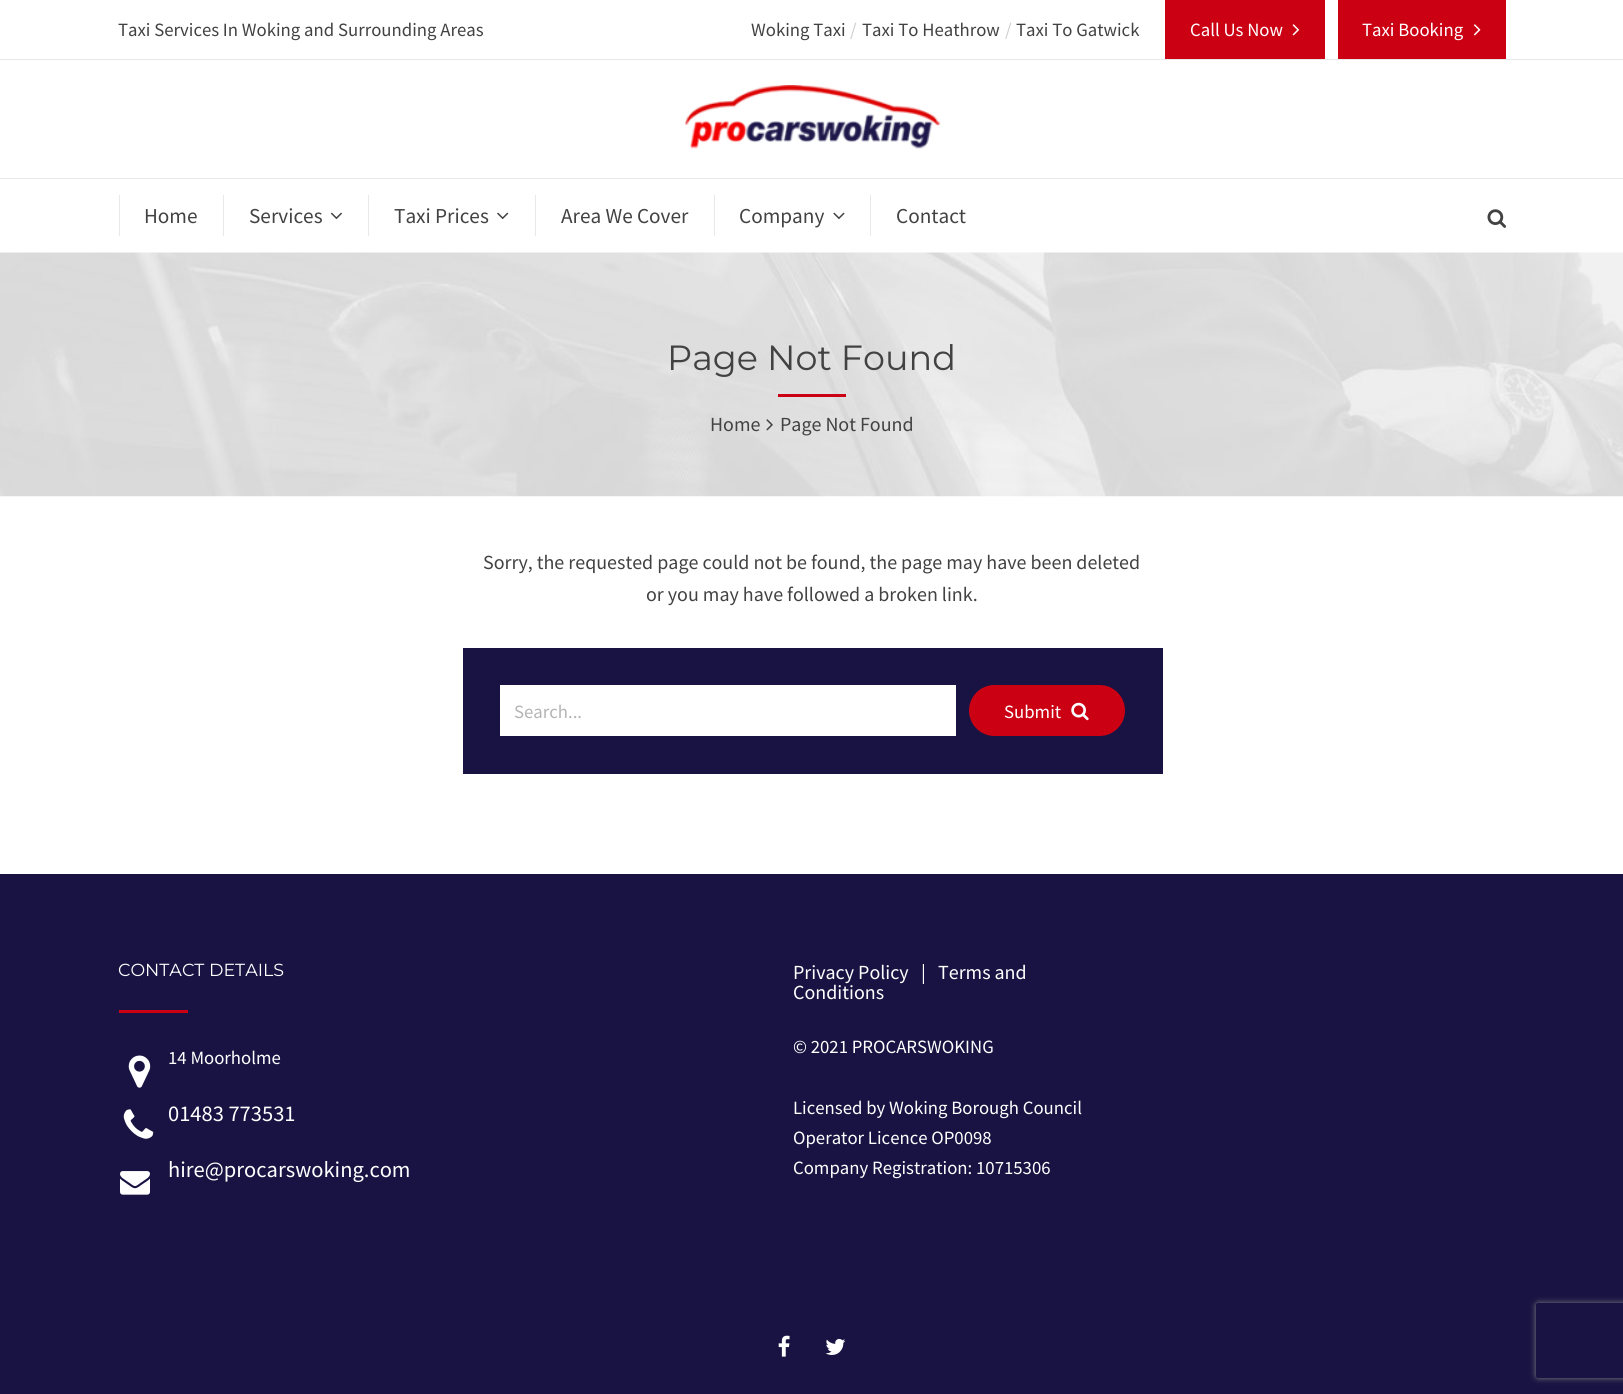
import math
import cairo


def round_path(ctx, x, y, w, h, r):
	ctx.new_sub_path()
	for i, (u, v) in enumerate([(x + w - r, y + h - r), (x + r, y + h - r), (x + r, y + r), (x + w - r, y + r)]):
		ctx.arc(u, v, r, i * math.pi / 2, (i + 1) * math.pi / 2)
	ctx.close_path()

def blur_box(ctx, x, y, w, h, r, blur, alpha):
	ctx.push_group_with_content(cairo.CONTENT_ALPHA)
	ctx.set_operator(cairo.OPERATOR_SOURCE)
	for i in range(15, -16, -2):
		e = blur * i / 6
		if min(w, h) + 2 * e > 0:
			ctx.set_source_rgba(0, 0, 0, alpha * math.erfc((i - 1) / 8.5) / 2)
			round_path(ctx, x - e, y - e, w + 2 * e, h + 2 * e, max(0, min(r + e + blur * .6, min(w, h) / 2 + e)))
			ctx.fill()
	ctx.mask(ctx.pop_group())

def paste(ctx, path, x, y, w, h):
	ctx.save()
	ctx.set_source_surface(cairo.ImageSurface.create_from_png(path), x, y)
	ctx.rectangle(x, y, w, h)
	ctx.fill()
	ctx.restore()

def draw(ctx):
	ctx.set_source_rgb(1, 1, 1)
	ctx.paint()
	ctx.set_source_rgb(0.91, 0.91, 0.91)
	ctx.rectangle(0, 59, 1623, 1)
	ctx.fill()
	ctx.select_font_face('Source Sans Pro')
	ctx.set_font_size(18.75)
	ctx.set_source_rgb(0.259, 0.259, 0.259)
	ctx.move_to(118, 36)
	ctx.show_text('Taxi Services In Woking and Surrounding Areas')
	ctx.move_to(751, 36)
	ctx.show_text('Woking Taxi')
	ctx.set_source_rgb(0.8, 0.8, 0.8)
	ctx.move_to(850, 36)
	ctx.show_text('/')
	ctx.set_source_rgb(0.259, 0.259, 0.259)
	ctx.move_to(862, 36)
	ctx.show_text('Taxi To Heathrow')
	ctx.set_source_rgb(0.8, 0.8, 0.8)
	ctx.move_to(1005, 36)
	ctx.show_text('/')
	ctx.set_source_rgb(0.259, 0.259, 0.259)
	ctx.move_to(1016, 36)
	ctx.show_text('Taxi To Gatwick')
	ctx.set_source_rgb(0.8, 0, 0.078)
	ctx.rectangle(1165, 0, 160, 59)
	ctx.fill()
	ctx.set_source_rgb(1, 1, 1)
	ctx.move_to(1190, 36)
	ctx.show_text('Call Us Now')
	paste(ctx, 'media/1.png', 1292, 24, 8, 12)
	ctx.set_source_rgb(0.8, 0, 0.078)
	ctx.rectangle(1338, 0, 168, 59)
	ctx.fill()
	ctx.set_source_rgb(1, 1, 1)
	ctx.move_to(1362, 36)
	ctx.show_text('Taxi Booking')
	paste(ctx, 'media/2.png', 1473, 24, 8, 12)
	paste(ctx, 'media/3.png', 685, 85, 256, 64)
	ctx.set_source_rgb(0.91, 0.91, 0.91)
	ctx.rectangle(0, 178, 1623, 1)
	ctx.fill()
	ctx.rectangle(119, 195, 1, 41)
	ctx.fill()
	ctx.set_font_size(21.25)
	ctx.set_source_rgb(0.259, 0.259, 0.259)
	ctx.move_to(144, 223)
	ctx.show_text('Home')
	ctx.set_source_rgb(0.91, 0.91, 0.91)
	ctx.rectangle(223, 195, 1, 41)
	ctx.fill()
	ctx.set_source_rgb(0.259, 0.259, 0.259)
	ctx.move_to(249, 223)
	ctx.show_text('Services')
	paste(ctx, 'media/4.png', 330, 212, 12, 8)
	ctx.set_source_rgb(0.91, 0.91, 0.91)
	ctx.rectangle(368, 195, 1, 41)
	ctx.fill()
	ctx.set_source_rgb(0.259, 0.259, 0.259)
	ctx.move_to(394, 223)
	ctx.show_text('Taxi Prices')
	paste(ctx, 'media/5.png', 497, 212, 12, 8)
	ctx.set_source_rgb(0.91, 0.91, 0.91)
	ctx.rectangle(535, 195, 1, 41)
	ctx.fill()
	ctx.set_source_rgb(0.259, 0.259, 0.259)
	ctx.move_to(561, 223)
	ctx.show_text('Area We Cover')
	ctx.set_source_rgb(0.91, 0.91, 0.91)
	ctx.rectangle(714, 195, 1, 41)
	ctx.fill()
	ctx.set_source_rgb(0.259, 0.259, 0.259)
	ctx.move_to(739, 223)
	ctx.show_text('Company')
	paste(ctx, 'media/6.png', 833, 212, 12, 8)
	ctx.set_source_rgb(0.91, 0.91, 0.91)
	ctx.rectangle(870, 195, 1, 41)
	ctx.fill()
	ctx.set_source_rgb(0.259, 0.259, 0.259)
	ctx.move_to(896, 223)
	ctx.show_text('Contact')
	paste(ctx, 'media/7.png', 1487, 209, 20, 19)
	paste(ctx, 'media/8.png', 0, 252, 1623, 245)
	ctx.select_font_face('Montserrat Thin')
	ctx.set_font_size(35)
	ctx.move_to(667, 370)
	ctx.show_text('Page Not Found')
	ctx.set_source_rgb(0.8, 0, 0.078)
	ctx.rectangle(778, 394, 68, 3)
	ctx.fill()
	ctx.select_font_face('Source Sans Pro')
	ctx.set_font_size(20)
	ctx.set_source_rgb(0.259, 0.259, 0.259)
	ctx.move_to(710, 431)
	ctx.show_text('Home')
	paste(ctx, 'media/9.png', 766, 419, 7, 12)
	for x, y, s in [
		(780, 431, 'Page Not Found'),
		(483, 569, 'Sorry, the requested page could not be found, the page may have been deleted'),
		(646, 601, 'or you may have followed a broken link.'),
	]:
		ctx.move_to(x, y)
		ctx.show_text(s)
	ctx.set_source_rgb(0.094, 0.078, 0.259)
	ctx.rectangle(463, 648, 700, 126)
	ctx.fill()
	ctx.set_source_rgb(1, 1, 1)
	ctx.rectangle(500, 685, 456, 51)
	ctx.fill()
	ctx.set_font_size(18.75)
	ctx.set_source_rgb(0.706, 0.706, 0.706)
	ctx.move_to(514, 718)
	ctx.show_text('Search...')
	ctx.set_source_rgb(0.8, 0, 0.078)
	round_path(ctx, 969, 685, 156, 51, 25.5)
	ctx.fill()
	ctx.set_source_rgb(1, 1, 1)
	ctx.move_to(1004, 718)
	ctx.show_text('Submit')
	paste(ctx, 'media/10.png', 1071, 702, 18, 19)
	ctx.set_source_rgb(0.094, 0.078, 0.259)
	ctx.rectangle(0, 874, 1623, 520)
	ctx.fill()
	ctx.select_font_face('Montserrat Thin')
	ctx.set_font_size(17.5)
	ctx.set_source_rgb(1, 1, 1)
	ctx.move_to(118, 976)
	ctx.show_text('CONTACT DETAILS')
	ctx.set_source_rgb(0.8, 0, 0.078)
	ctx.rectangle(119, 1010, 69, 3)
	ctx.fill()
	paste(ctx, 'media/11.png', 128, 1055, 23, 33)
	ctx.select_font_face('Source Sans Pro')
	ctx.set_font_size(18.75)
	ctx.set_source_rgb(1, 1, 1)
	ctx.move_to(168, 1064)
	ctx.show_text('14 Moorholme')
	paste(ctx, 'media/12.png', 123, 1109, 31, 30)
	ctx.set_font_size(22.5)
	ctx.move_to(168, 1121)
	ctx.show_text('01483 773531')
	paste(ctx, 'media/13.png', 120, 1171, 30, 24)
	ctx.move_to(168, 1177)
	ctx.show_text('hire@procarswoking.com')
	ctx.set_font_size(20)
	for x, y, s in [
		(793, 979, 'Privacy Policy'),
		(921, 979, '|'),
		(938, 979, 'Terms and'),
		(793, 999, 'Conditions'),
	]:
		ctx.move_to(x, y)
		ctx.show_text(s)
	ctx.set_font_size(18.75)
	for x, y, s in [
		(793, 1053, '© 2021 PROCARSWOKING'),
		(793, 1114, 'Licensed by Woking Borough Council'),
		(793, 1144, 'Operator Licence OP0098'),
		(793, 1174, 'Company Registration: 10715306'),
	]:
		ctx.move_to(x, y)
		ctx.show_text(s)
	paste(ctx, 'media/14.png', 778, 1335, 12, 22)
	paste(ctx, 'media/15.png', 825, 1338, 21, 17)
	ctx.save()
	ctx.set_fill_rule(cairo.FILL_RULE_EVEN_ODD)
	ctx.new_path()
	ctx.move_to(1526, 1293)
	ctx.line_to(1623, 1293)
	ctx.line_to(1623, 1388)
	ctx.line_to(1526, 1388)
	ctx.close_path()
	ctx.move_to(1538.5, 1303)
	ctx.line_to(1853.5, 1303)
	ctx.curve_to(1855, 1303, 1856, 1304, 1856, 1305.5)
	ctx.line_to(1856, 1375.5)
	ctx.curve_to(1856, 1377, 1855, 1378, 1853.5, 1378)
	ctx.line_to(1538.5, 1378)
	ctx.curve_to(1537, 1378, 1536, 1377, 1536, 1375.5)
	ctx.line_to(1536, 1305.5)
	ctx.curve_to(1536, 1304, 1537, 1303, 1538.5, 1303)
	ctx.close_path()
	ctx.clip()
	ctx.set_source_rgb(0.502, 0.502, 0.502)
	blur_box(ctx, 1536, 1303, 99, 75, 2.5, 3, 1)
	ctx.restore()


surface = cairo.ImageSurface(cairo.FORMAT_RGB24, 1623, 1394)
ctx = cairo.Context(surface)
options = cairo.FontOptions()
options.set_hint_metrics(cairo.HINT_METRICS_OFF)
options.set_hint_style(cairo.HINT_STYLE_NONE)
ctx.set_font_options(options)
ctx.set_miter_limit(4)
draw(ctx)
surface.write_to_png('image.png')
